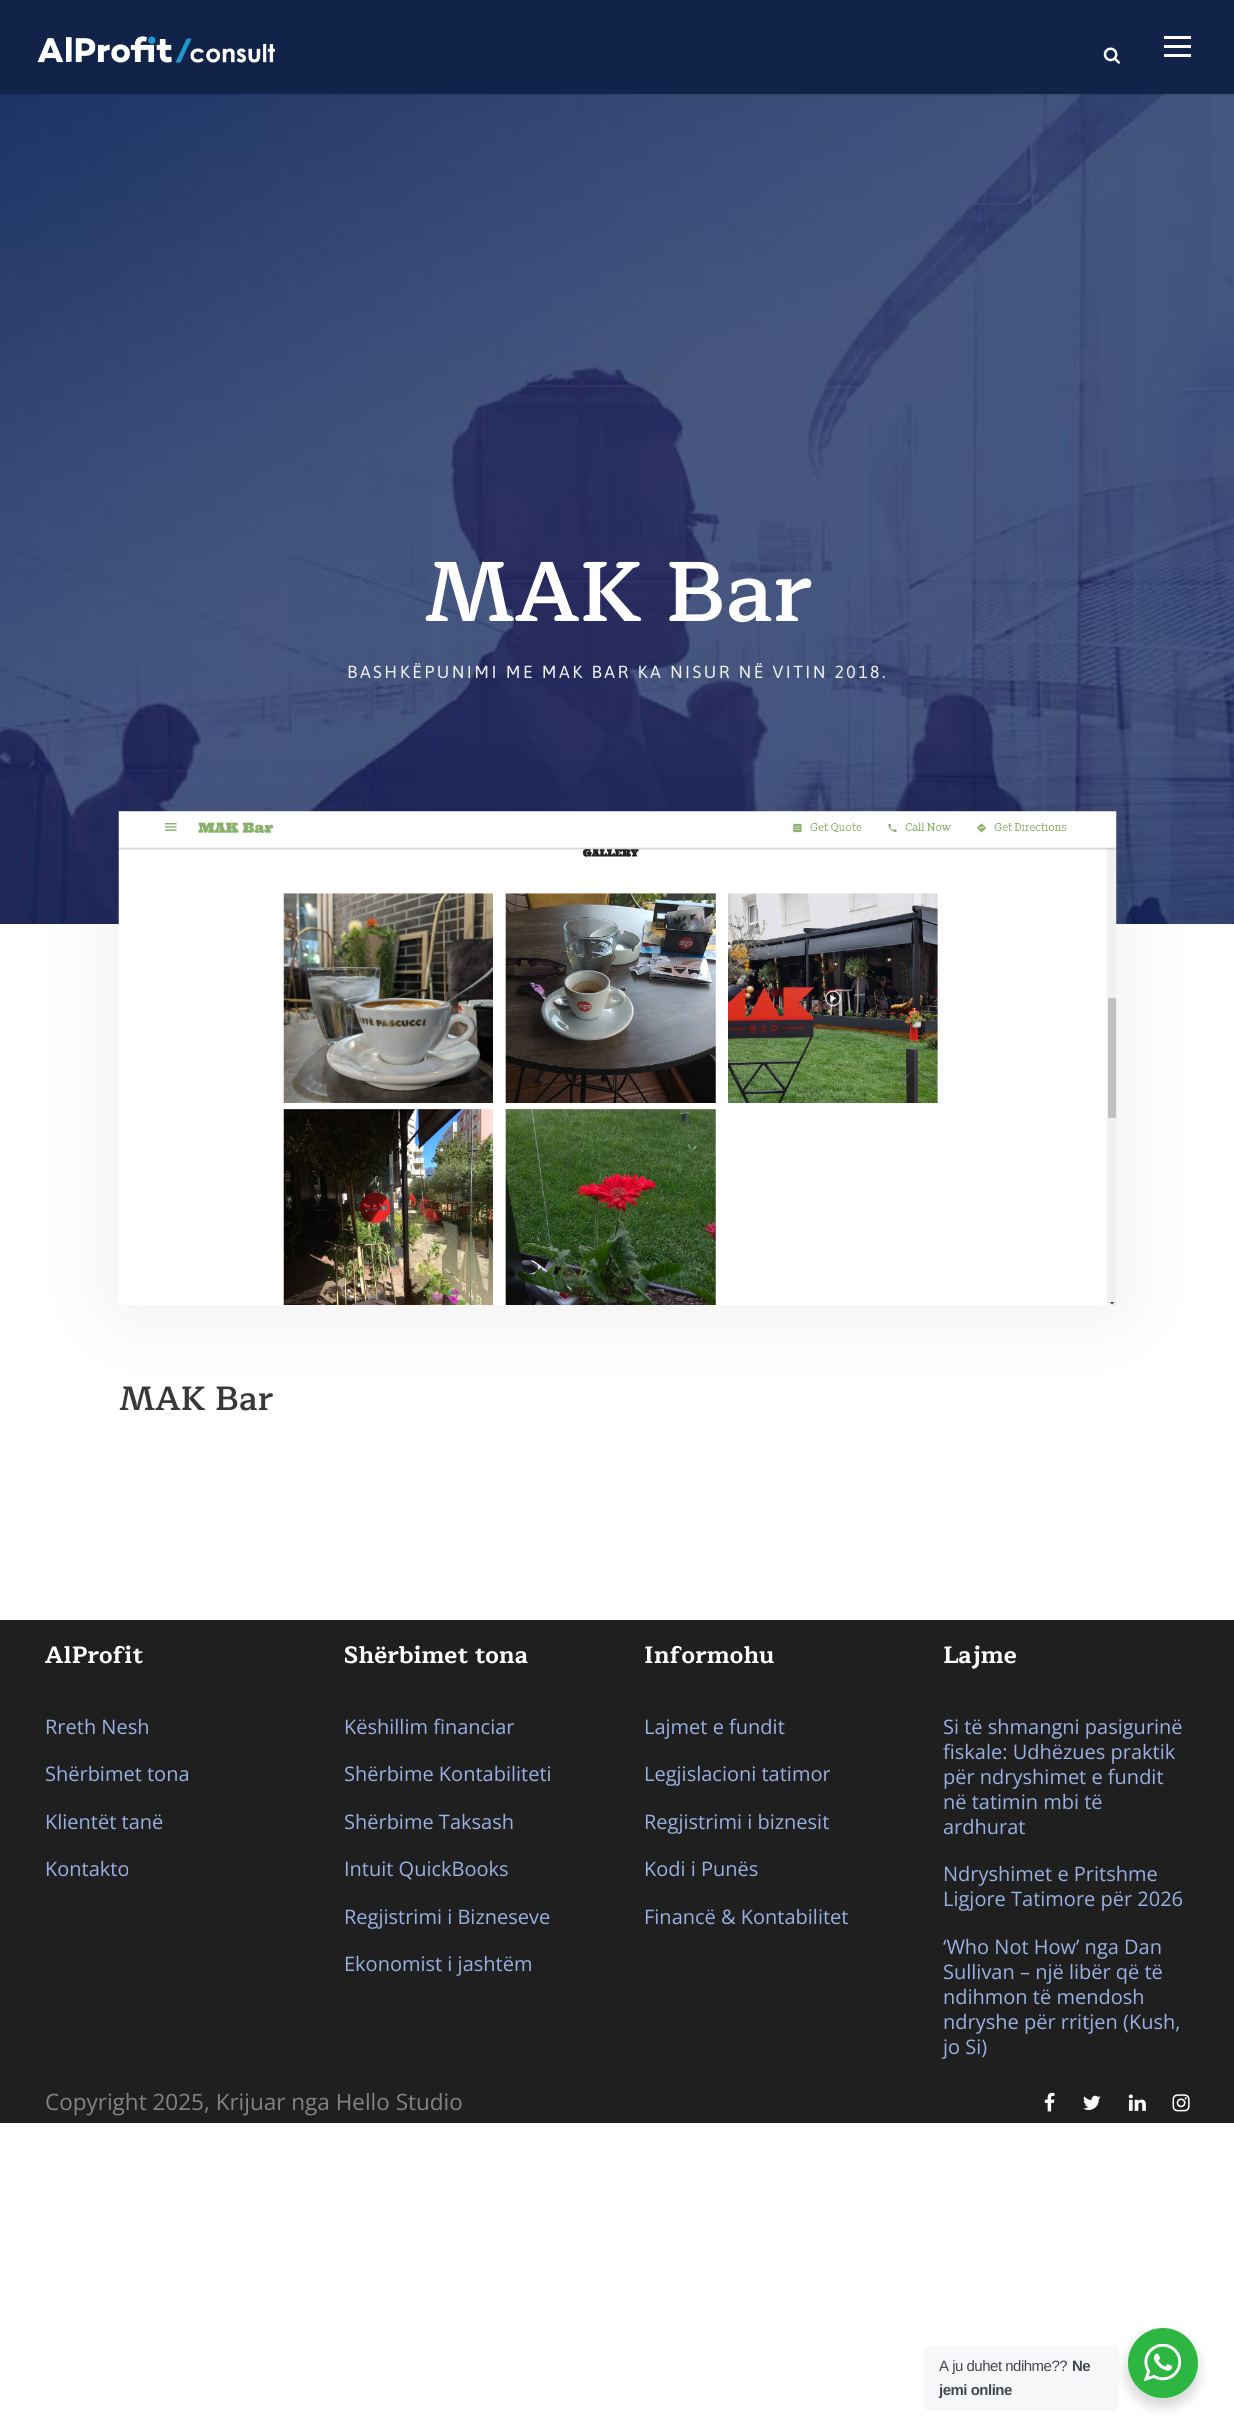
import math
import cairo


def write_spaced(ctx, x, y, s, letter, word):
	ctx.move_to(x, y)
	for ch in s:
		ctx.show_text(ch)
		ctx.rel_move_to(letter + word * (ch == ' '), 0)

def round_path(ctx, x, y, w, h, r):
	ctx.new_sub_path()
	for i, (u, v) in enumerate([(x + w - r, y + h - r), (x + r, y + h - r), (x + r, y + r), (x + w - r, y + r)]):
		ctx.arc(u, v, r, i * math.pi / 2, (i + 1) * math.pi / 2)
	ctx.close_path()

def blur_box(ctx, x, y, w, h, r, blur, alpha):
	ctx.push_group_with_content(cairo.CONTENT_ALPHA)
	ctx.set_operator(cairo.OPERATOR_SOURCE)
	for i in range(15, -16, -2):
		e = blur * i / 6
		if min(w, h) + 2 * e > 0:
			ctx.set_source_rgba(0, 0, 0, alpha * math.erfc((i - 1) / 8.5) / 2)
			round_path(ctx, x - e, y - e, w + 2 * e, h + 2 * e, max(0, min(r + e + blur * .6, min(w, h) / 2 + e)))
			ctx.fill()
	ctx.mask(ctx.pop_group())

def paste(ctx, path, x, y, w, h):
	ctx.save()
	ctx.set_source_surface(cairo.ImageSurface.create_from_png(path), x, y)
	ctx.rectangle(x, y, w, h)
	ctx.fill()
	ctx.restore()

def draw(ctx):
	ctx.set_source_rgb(1, 1, 1)
	ctx.paint()
	paste(ctx, 'media/3.png', 0, 94, 1234, 830)
	ctx.set_source_rgb(0, 0, 0)
	blur_box(ctx, 0, 1, 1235, 94, 0, 1, 0.1)
	ctx.set_source_rgb(0.067, 0.137, 0.286)
	ctx.rectangle(0, 0, 1234, 94)
	ctx.fill()
	paste(ctx, 'media/1.png', 37, 36, 238, 27)
	paste(ctx, 'media/2.png', 1103, 47, 17, 17)
	ctx.set_source_rgb(1, 1, 1)
	ctx.rectangle(1164, 36, 27, 3)
	ctx.rectangle(1164, 45, 27, 3)
	ctx.rectangle(1164, 54, 27, 3)
	ctx.fill()
	ctx.select_font_face('Maitree SemiBold')
	ctx.set_font_size(85)
	ctx.move_to(424, 621)
	ctx.show_text('MAK Bar')
	ctx.select_font_face('Asap')
	ctx.set_font_size(17.5)
	ctx.set_source_rgb(0.937, 0.937, 0.937)
	write_spaced(ctx, 347, 678, 'BASHKËPUNIMI ME MAK BAR KA NISUR NË VITIN 2018.', 2.5, 0)
	ctx.set_source_rgb(0.039, 0.039, 0.039)
	blur_box(ctx, 119, 811, 997, 494, 0, 46, 0.07)
	paste(ctx, 'media/4.png', 118, 811, 999, 494)
	ctx.select_font_face('Maitree SemiBold')
	ctx.set_font_size(33.75)
	ctx.set_source_rgb(0.22, 0.22, 0.22)
	ctx.move_to(119, 1410)
	ctx.show_text('MAK Bar')
	ctx.set_source_rgb(0.122, 0.122, 0.122)
	ctx.rectangle(0, 1620, 1234, 503)
	ctx.fill()
	ctx.select_font_face('Maitree', cairo.FONT_SLANT_NORMAL, cairo.FONT_WEIGHT_BOLD)
	ctx.set_font_size(23.75)
	ctx.set_source_rgb(1, 1, 1)
	ctx.move_to(45, 1663)
	ctx.show_text('AlProfit')
	ctx.select_font_face('Open Sans')
	ctx.set_font_size(20)
	ctx.set_source_rgb(0.6, 0.69, 0.886)
	for x, y, s in [
		(45, 1734, 'Rreth Nesh'),
		(45, 1781, 'Shërbimet tona'),
		(45, 1829, 'Klientët tanë'),
		(45, 1876, 'Kontakto'),
	]:
		ctx.move_to(x, y)
		ctx.show_text(s)
	ctx.select_font_face('Maitree', cairo.FONT_SLANT_NORMAL, cairo.FONT_WEIGHT_BOLD)
	ctx.set_font_size(23.75)
	ctx.set_source_rgb(1, 1, 1)
	ctx.move_to(344, 1663)
	ctx.show_text('Shërbimet tona')
	ctx.select_font_face('Open Sans')
	ctx.set_font_size(20)
	ctx.set_source_rgb(0.6, 0.69, 0.886)
	for x, y, s in [
		(344, 1734, 'Këshillim financiar'),
		(344, 1781, 'Shërbime Kontabiliteti'),
		(344, 1829, 'Shërbime Taksash'),
		(344, 1876, 'Intuit QuickBooks'),
		(344, 1924, 'Regjistrimi i Bizneseve'),
		(344, 1971, 'Ekonomist i jashtëm'),
	]:
		ctx.move_to(x, y)
		ctx.show_text(s)
	ctx.select_font_face('Maitree', cairo.FONT_SLANT_NORMAL, cairo.FONT_WEIGHT_BOLD)
	ctx.set_font_size(23.75)
	ctx.set_source_rgb(1, 1, 1)
	ctx.move_to(644, 1663)
	ctx.show_text('Informohu')
	ctx.select_font_face('Open Sans')
	ctx.set_font_size(20)
	ctx.set_source_rgb(0.6, 0.69, 0.886)
	for x, y, s in [
		(644, 1734, 'Lajmet e fundit'),
		(644, 1781, 'Legjislacioni tatimor'),
		(644, 1829, 'Regjistrimi i biznesit'),
		(644, 1876, 'Kodi i Punës'),
		(644, 1924, 'Financë & Kontabilitet'),
	]:
		ctx.move_to(x, y)
		ctx.show_text(s)
	ctx.select_font_face('Maitree', cairo.FONT_SLANT_NORMAL, cairo.FONT_WEIGHT_BOLD)
	ctx.set_font_size(23.75)
	ctx.set_source_rgb(1, 1, 1)
	ctx.move_to(943, 1663)
	ctx.show_text('Lajme')
	ctx.select_font_face('Open Sans')
	ctx.set_font_size(20)
	ctx.set_source_rgb(0.6, 0.69, 0.886)
	for x, y, s in [
		(943, 1734, 'Si të shmangni pasigurinë'),
		(943, 1759, 'fiskale: Udhëzues praktik'),
		(943, 1784, 'për ndryshimet e fundit'),
		(943, 1809, 'në tatimin mbi të'),
		(943, 1834, 'ardhurat'),
		(943, 1881, 'Ndryshimet e Pritshme'),
		(943, 1906, 'Ligjore Tatimore për 2026'),
		(943, 1954, '‘Who Not How’ nga Dan'),
		(943, 1979, 'Sullivan – një libër që të'),
		(943, 2004, 'ndihmon të mendosh'),
		(943, 2029, 'ndryshe për rritjen (Kush,'),
		(943, 2054, 'jo Si)'),
	]:
		ctx.move_to(x, y)
		ctx.show_text(s)
	ctx.set_font_size(22.5)
	ctx.set_source_rgb(0.514, 0.514, 0.514)
	ctx.move_to(45, 2110)
	ctx.show_text('Copyright 2025, Krijuar nga Hello Studio')
	paste(ctx, 'media/5.png', 1044, 2092, 11, 20)
	paste(ctx, 'media/6.png', 1083, 2095, 18, 15)
	paste(ctx, 'media/7.png', 1128, 2094, 18, 17)
	paste(ctx, 'media/8.png', 1172, 2094, 18, 18)
	ctx.set_source_rgb(0, 0, 0)
	blur_box(ctx, 1125, 2333, 75, 75, 37.5, 5, 0.14)
	ctx.set_source_rgb(0.961, 0.969, 0.976)
	round_path(ctx, 924, 2346, 195, 65, 5)
	ctx.fill()
	ctx.select_font_face('Liberation Sans')
	ctx.set_font_size(15)
	ctx.set_source_rgb(0.263, 0.278, 0.306)
	write_spaced(ctx, 939, 2371, 'A ju duhet ndihme??', -0.5, 0)
	ctx.select_font_face('Liberation Sans', cairo.FONT_SLANT_NORMAL, cairo.FONT_WEIGHT_BOLD)
	write_spaced(ctx, 1072, 2371, 'Ne', -0.5, 0)
	write_spaced(ctx, 939, 2395, 'jemi online', -0.5, 0)
	ctx.set_source_rgb(0.176, 0.718, 0.259)
	ctx.new_path()
	ctx.arc(1163, 2363, 35, 0, 2 * math.pi)
	ctx.fill()
	paste(ctx, 'media/9.png', 1144, 2344, 37, 37)


surface = cairo.ImageSurface(cairo.FORMAT_RGB24, 1234, 2434)
ctx = cairo.Context(surface)
options = cairo.FontOptions()
options.set_hint_metrics(cairo.HINT_METRICS_OFF)
options.set_hint_style(cairo.HINT_STYLE_NONE)
ctx.set_font_options(options)
ctx.set_miter_limit(4)
draw(ctx)
surface.write_to_png('image.png')
